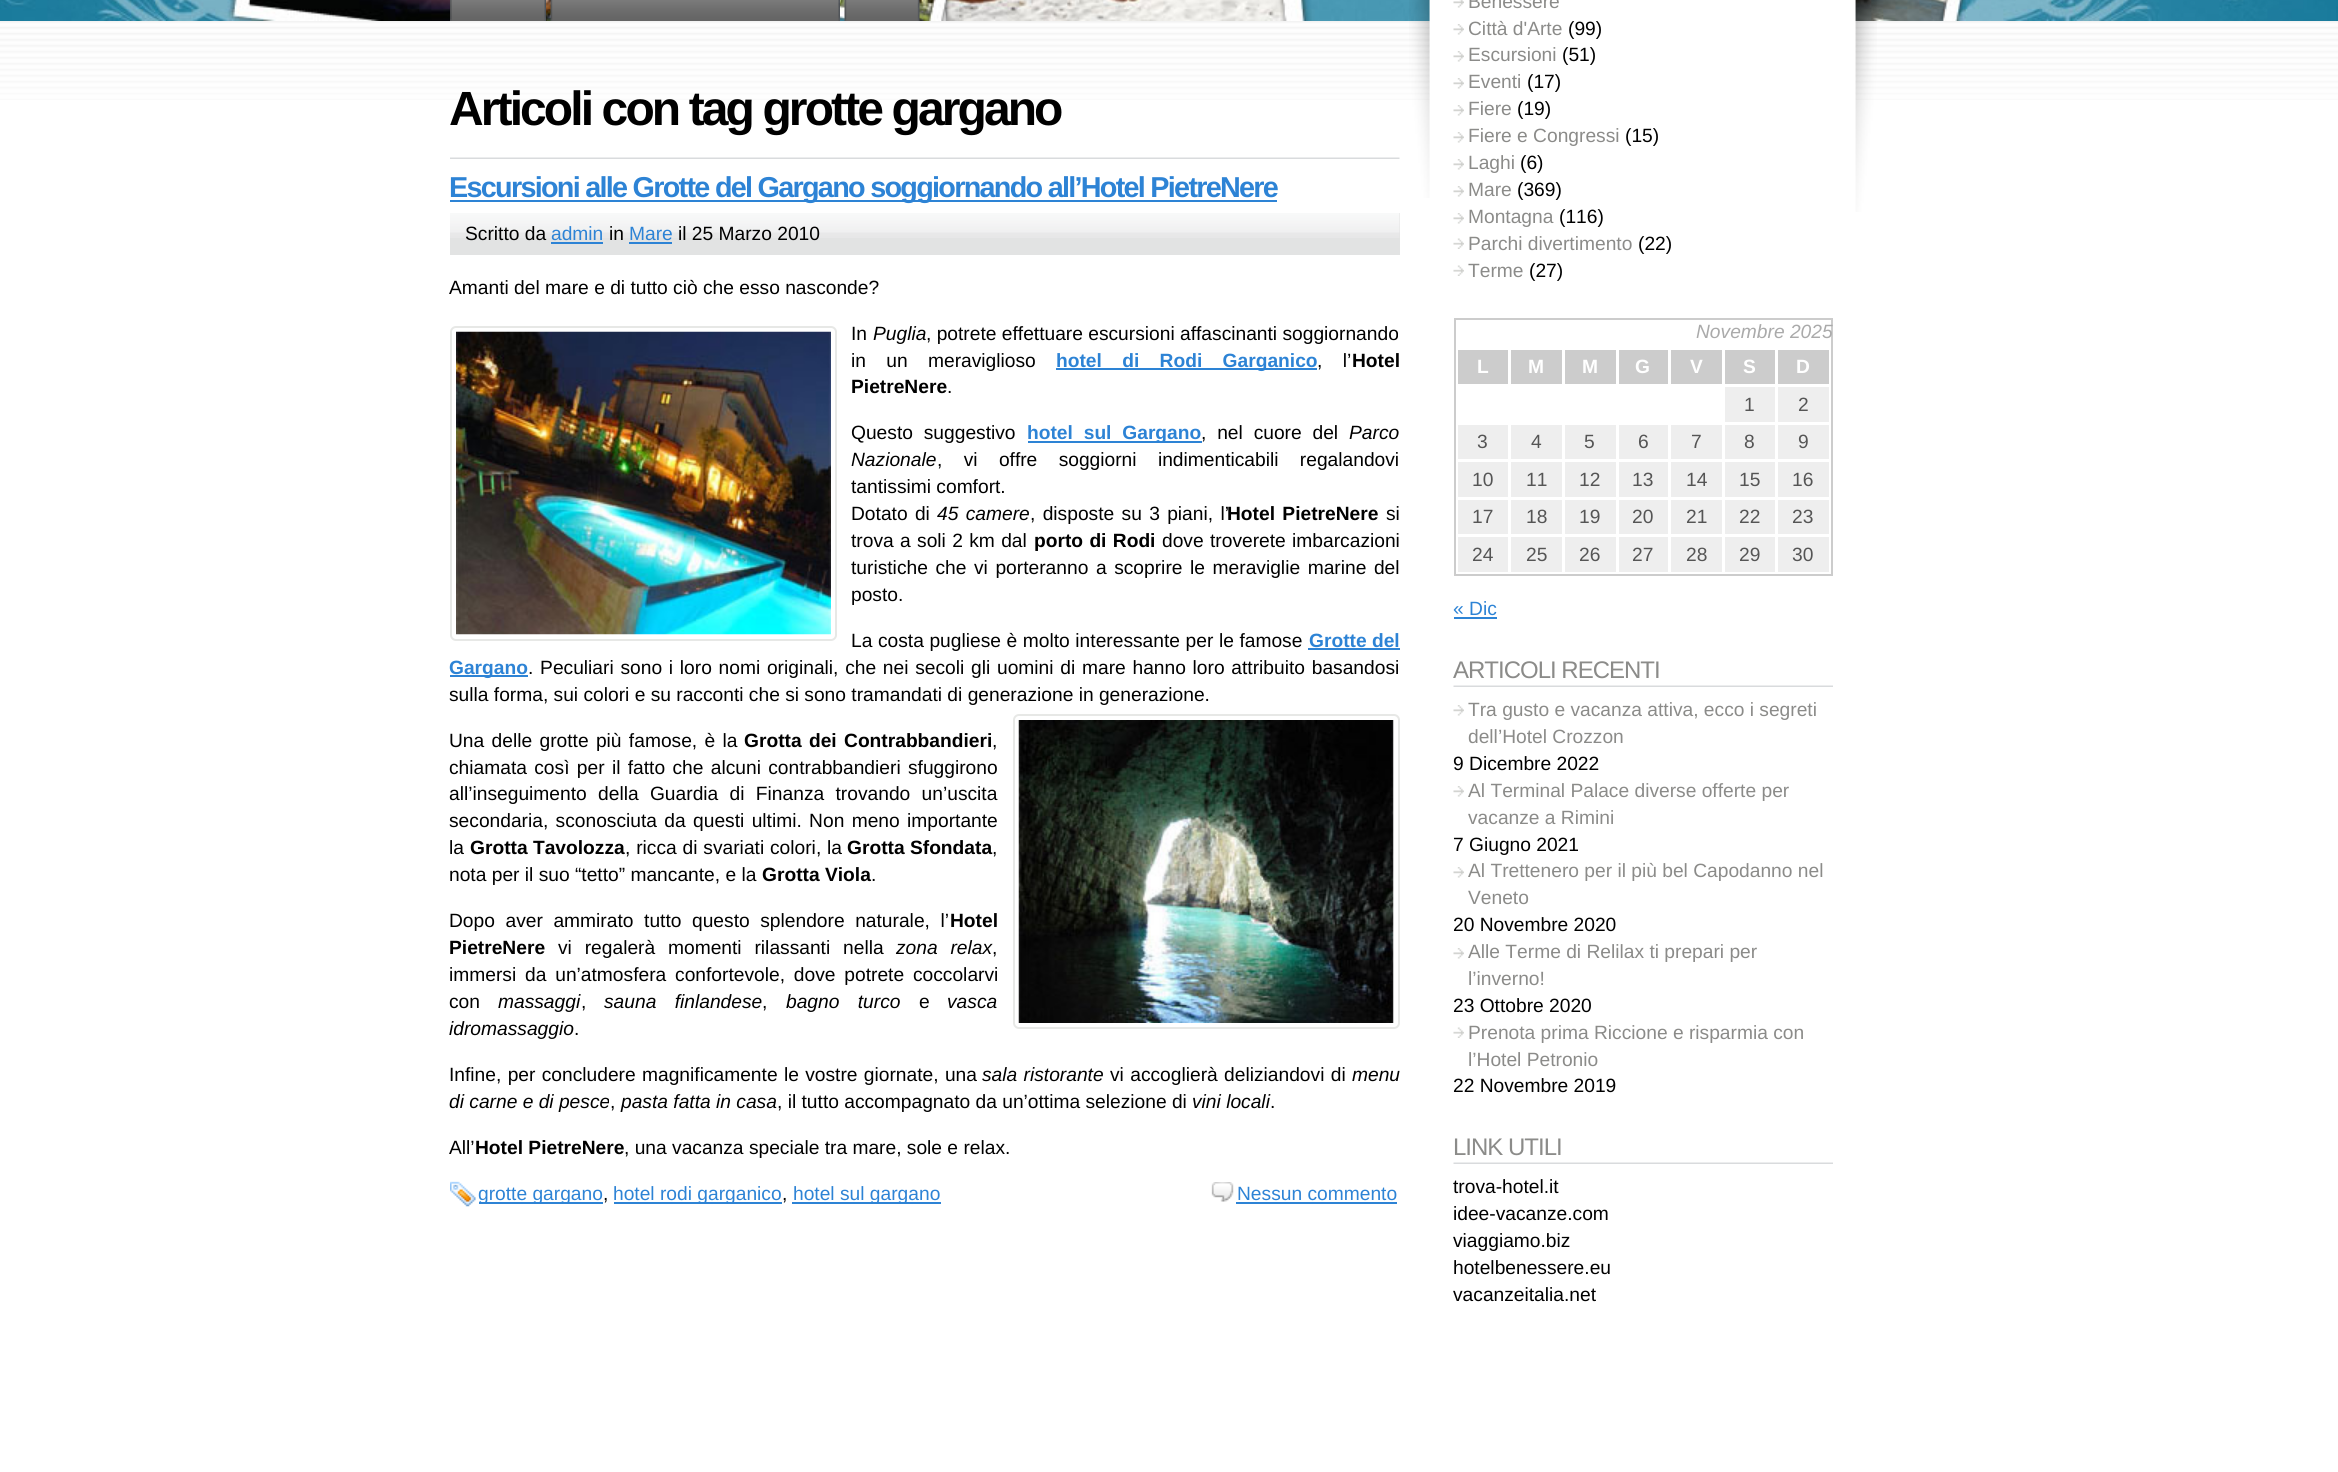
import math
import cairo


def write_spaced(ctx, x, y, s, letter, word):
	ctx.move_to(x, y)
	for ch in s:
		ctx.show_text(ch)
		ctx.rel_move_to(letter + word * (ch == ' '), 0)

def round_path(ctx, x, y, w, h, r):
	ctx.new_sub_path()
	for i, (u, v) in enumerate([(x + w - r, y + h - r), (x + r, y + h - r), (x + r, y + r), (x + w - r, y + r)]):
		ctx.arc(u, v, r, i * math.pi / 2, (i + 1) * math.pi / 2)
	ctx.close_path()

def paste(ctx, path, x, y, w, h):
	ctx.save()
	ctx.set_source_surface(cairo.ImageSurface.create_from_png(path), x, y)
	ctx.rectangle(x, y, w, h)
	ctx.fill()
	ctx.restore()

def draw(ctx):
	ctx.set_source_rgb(1, 1, 1)
	ctx.paint()
	paste(ctx, 'media/1.png', 0, 21, 2338, 79)
	paste(ctx, 'media/2.png', 2336, 0, 2, 21)
	paste(ctx, 'media/3.png', 0, 0, 2336, 21)
	paste(ctx, 'media/4.png', 450, 0, 16, 21)
	paste(ctx, 'media/5.png', 466, 0, 80, 21)
	paste(ctx, 'media/6.png', 550, 0, 15, 21)
	paste(ctx, 'media/7.png', 565, 0, 275, 21)
	paste(ctx, 'media/8.png', 844, 0, 15, 21)
	paste(ctx, 'media/9.png', 859, 0, 61, 21)
	ctx.select_font_face('Liberation Sans', cairo.FONT_SLANT_NORMAL, cairo.FONT_WEIGHT_BOLD)
	ctx.set_font_size(48)
	ctx.set_source_rgb(0, 0, 0)
	write_spaced(ctx, 449, 125, 'Articoli con tag grotte gargano', -2.9, 0)
	paste(ctx, 'media/10.png', 450, 157, 950, 2)
	ctx.set_source_rgb(0.176, 0.514, 0.835)
	ctx.rectangle(450, 200, 827, 2)
	ctx.fill()
	ctx.set_font_size(28.8)
	write_spaced(ctx, 449, 197, 'Escursioni alle Grotte del Gargano soggiornando all’Hotel PietreNere', -1.73, 0)
	ctx.set_source_rgb(0.886, 0.89, 0.89)
	ctx.rectangle(450, 213, 950, 42)
	ctx.fill()
	paste(ctx, 'media/11.png', 450, 213, 950, 25)
	ctx.select_font_face('Liberation Sans')
	ctx.set_font_size(19.2)
	ctx.set_source_rgb(0, 0, 0)
	ctx.move_to(465, 240)
	ctx.show_text('Scritto da')
	ctx.set_source_rgb(0.176, 0.514, 0.835)
	ctx.move_to(551, 240)
	ctx.show_text('admin')
	ctx.rectangle(551, 242, 52, 2)
	ctx.fill()
	ctx.set_source_rgb(0, 0, 0)
	ctx.move_to(609, 240)
	ctx.show_text('in')
	ctx.set_source_rgb(0.176, 0.514, 0.835)
	ctx.move_to(629, 240)
	ctx.show_text('Mare')
	ctx.rectangle(629, 242, 43, 2)
	ctx.fill()
	ctx.set_source_rgb(0, 0, 0)
	ctx.move_to(678, 240)
	ctx.show_text('il 25 Marzo 2010')
	ctx.move_to(449, 294)
	ctx.show_text('Amanti del mare e di tutto ciò che esso nasconde?')
	round_path(ctx, 451, 327, 385, 313, 5)
	ctx.set_source_rgb(0.906, 0.91, 0.902)
	ctx.stroke()
	paste(ctx, 'media/12.png', 456, 331, 375, 304)
	ctx.set_source_rgb(0, 0, 0)
	ctx.move_to(851, 340)
	ctx.show_text('In')
	ctx.select_font_face('Liberation Sans', cairo.FONT_SLANT_ITALIC)
	ctx.move_to(873, 340)
	ctx.show_text('Puglia')
	ctx.select_font_face('Liberation Sans')
	ctx.move_to(926, 340)
	ctx.show_text(', potrete effettuare escursioni affascinanti soggiornando')
	write_spaced(ctx, 851, 367, 'in un meraviglioso', 0, 15)
	ctx.set_source_rgb(0.176, 0.514, 0.835)
	ctx.rectangle(1056, 368, 261, 2)
	ctx.fill()
	ctx.select_font_face('Liberation Sans', cairo.FONT_SLANT_NORMAL, cairo.FONT_WEIGHT_BOLD)
	write_spaced(ctx, 1056, 367, 'hotel di Rodi Garganico', 0, 15)
	ctx.select_font_face('Liberation Sans')
	ctx.set_source_rgb(0, 0, 0)
	write_spaced(ctx, 1317, 367, ', l’', 0, 15)
	ctx.select_font_face('Liberation Sans', cairo.FONT_SLANT_NORMAL, cairo.FONT_WEIGHT_BOLD)
	ctx.move_to(1352, 367)
	ctx.show_text('Hotel')
	ctx.move_to(851, 393)
	ctx.show_text('PietreNere')
	ctx.select_font_face('Liberation Sans')
	ctx.move_to(947, 393)
	ctx.show_text('.')
	write_spaced(ctx, 851, 439, 'Questo suggestivo', 0, 5.5)
	ctx.set_source_rgb(0.176, 0.514, 0.835)
	ctx.rectangle(1028, 441, 174, 2)
	ctx.fill()
	ctx.select_font_face('Liberation Sans', cairo.FONT_SLANT_NORMAL, cairo.FONT_WEIGHT_BOLD)
	write_spaced(ctx, 1027, 439, 'hotel sul Gargano', 0, 5.5)
	ctx.select_font_face('Liberation Sans')
	ctx.set_source_rgb(0, 0, 0)
	write_spaced(ctx, 1201, 439, ', nel cuore del', 0, 5.5)
	ctx.select_font_face('Liberation Sans', cairo.FONT_SLANT_ITALIC)
	ctx.move_to(1349, 439)
	ctx.show_text('Parco')
	ctx.move_to(851, 466)
	ctx.show_text('Nazionale')
	ctx.select_font_face('Liberation Sans')
	write_spaced(ctx, 937, 466, ', vi offre soggiorni indimenticabili regalandovi', 0, 16)
	ctx.move_to(851, 493)
	ctx.show_text('tantissimi comfort.')
	write_spaced(ctx, 851, 520, 'Dotato di', 0, 2)
	ctx.select_font_face('Liberation Sans', cairo.FONT_SLANT_ITALIC)
	write_spaced(ctx, 937, 520, '45 camere', 0, 2)
	ctx.select_font_face('Liberation Sans')
	write_spaced(ctx, 1030, 520, ', disposte su 3 piani, l’', 0, 2)
	ctx.select_font_face('Liberation Sans', cairo.FONT_SLANT_NORMAL, cairo.FONT_WEIGHT_BOLD)
	write_spaced(ctx, 1227, 520, 'Hotel PietreNere', 0, 2)
	ctx.select_font_face('Liberation Sans')
	ctx.move_to(1386, 520)
	ctx.show_text('si')
	write_spaced(ctx, 851, 547, 'trova a soli 2 km dal', 0, 1)
	ctx.select_font_face('Liberation Sans', cairo.FONT_SLANT_NORMAL, cairo.FONT_WEIGHT_BOLD)
	write_spaced(ctx, 1034, 547, 'porto di Rodi', 0, 1)
	ctx.select_font_face('Liberation Sans')
	write_spaced(ctx, 1162, 547, 'dove troverete imbarcazioni', 0, 1)
	write_spaced(ctx, 851, 574, 'turistiche che vi porteranno a scoprire le meraviglie marine del', 0, 2.25)
	ctx.move_to(851, 601)
	ctx.show_text('posto.')
	write_spaced(ctx, 851, 647, 'La costa pugliese è molto interessante per le famose', 0, 0.25)
	ctx.select_font_face('Liberation Sans', cairo.FONT_SLANT_NORMAL, cairo.FONT_WEIGHT_BOLD)
	ctx.set_source_rgb(0.176, 0.514, 0.835)
	ctx.move_to(1309, 647)
	ctx.show_text('Grotte del')
	ctx.rectangle(1308, 648, 92, 2)
	ctx.fill()
	ctx.rectangle(450, 675, 78, 2)
	ctx.fill()
	ctx.move_to(449, 674)
	ctx.show_text('Gargano')
	ctx.select_font_face('Liberation Sans')
	ctx.set_source_rgb(0, 0, 0)
	write_spaced(ctx, 528, 674, '. Peculiari sono i loro nomi originali, che nei secoli gli uomini di mare hanno loro attribuito basandosi', 0, 1.4)
	ctx.move_to(449, 701)
	ctx.show_text('sulla forma, sui colori e su racconti che si sono tramandati di generazione in generazione.')
	round_path(ctx, 1014, 715, 385, 313, 5)
	ctx.set_source_rgb(0.906, 0.91, 0.902)
	ctx.stroke()
	paste(ctx, 'media/13.png', 1018, 720, 376, 303)
	ctx.set_source_rgb(0, 0, 0)
	write_spaced(ctx, 449, 747, 'Una delle grotte più famose, è la', 0, 2)
	ctx.select_font_face('Liberation Sans', cairo.FONT_SLANT_NORMAL, cairo.FONT_WEIGHT_BOLD)
	write_spaced(ctx, 744, 747, 'Grotta dei Contrabbandieri', 0, 2)
	ctx.select_font_face('Liberation Sans')
	ctx.move_to(992, 747)
	ctx.show_text(',')
	write_spaced(ctx, 449, 774, 'chiamata così per il fatto che alcuni contrabbandieri sfuggirono', 0, 2)
	write_spaced(ctx, 449, 800, 'all’inseguimento della Guardia di Finanza trovando un’uscita', 0, 6)
	write_spaced(ctx, 449, 827, 'secondaria, sconosciuta da questi ultimi. Non meno importante', 0, 2)
	ctx.move_to(449, 854)
	ctx.show_text('la')
	ctx.select_font_face('Liberation Sans', cairo.FONT_SLANT_NORMAL, cairo.FONT_WEIGHT_BOLD)
	ctx.move_to(470, 854)
	ctx.show_text('Grotta Tavolozza')
	ctx.select_font_face('Liberation Sans')
	write_spaced(ctx, 625, 854, ', ricca di svariati colori, la', 0, 0.5)
	ctx.select_font_face('Liberation Sans', cairo.FONT_SLANT_NORMAL, cairo.FONT_WEIGHT_BOLD)
	ctx.move_to(847, 854)
	ctx.show_text('Grotta Sfondata')
	ctx.select_font_face('Liberation Sans')
	ctx.move_to(992, 854)
	ctx.show_text(',')
	ctx.move_to(449, 881)
	ctx.show_text('nota per il suo “tetto” mancante, e la')
	ctx.select_font_face('Liberation Sans', cairo.FONT_SLANT_NORMAL, cairo.FONT_WEIGHT_BOLD)
	ctx.move_to(762, 881)
	ctx.show_text('Grotta Viola')
	ctx.select_font_face('Liberation Sans')
	ctx.move_to(871, 881)
	ctx.show_text('.')
	write_spaced(ctx, 449, 927, 'Dopo aver ammirato tutto questo splendore naturale, l’', 0, 5.25)
	ctx.select_font_face('Liberation Sans', cairo.FONT_SLANT_NORMAL, cairo.FONT_WEIGHT_BOLD)
	ctx.move_to(950, 927)
	ctx.show_text('Hotel')
	ctx.move_to(449, 954)
	ctx.show_text('PietreNere')
	ctx.select_font_face('Liberation Sans')
	write_spaced(ctx, 558, 954, 'vi regalerà momenti rilassanti nella', 0, 7.5)
	ctx.select_font_face('Liberation Sans', cairo.FONT_SLANT_ITALIC)
	write_spaced(ctx, 896, 954, 'zona relax', 0, 7.5)
	ctx.select_font_face('Liberation Sans')
	ctx.move_to(992, 954)
	ctx.show_text(',')
	write_spaced(ctx, 449, 981, 'immersi da un’atmosfera confortevole, dove potrete coccolarvi', 0, 3.5)
	ctx.move_to(449, 1008)
	ctx.show_text('con')
	ctx.select_font_face('Liberation Sans', cairo.FONT_SLANT_ITALIC)
	ctx.move_to(498, 1008)
	ctx.show_text('massaggi')
	ctx.select_font_face('Liberation Sans')
	ctx.move_to(581, 1008)
	ctx.show_text(',')
	ctx.select_font_face('Liberation Sans', cairo.FONT_SLANT_ITALIC)
	write_spaced(ctx, 604, 1008, 'sauna finlandese', 0, 13)
	ctx.select_font_face('Liberation Sans')
	ctx.move_to(762, 1008)
	ctx.show_text(',')
	ctx.select_font_face('Liberation Sans', cairo.FONT_SLANT_ITALIC)
	write_spaced(ctx, 786, 1008, 'bagno turco', 0, 13)
	ctx.select_font_face('Liberation Sans')
	ctx.move_to(919, 1008)
	ctx.show_text('e')
	ctx.select_font_face('Liberation Sans', cairo.FONT_SLANT_ITALIC)
	ctx.move_to(947, 1008)
	ctx.show_text('vasca')
	ctx.move_to(449, 1035)
	ctx.show_text('idromassaggio')
	ctx.select_font_face('Liberation Sans')
	ctx.move_to(574, 1035)
	ctx.show_text('.')
	write_spaced(ctx, 449, 1081, 'Infine, per concludere magnificamente le vostre giornate, una', 0, 1)
	ctx.select_font_face('Liberation Sans', cairo.FONT_SLANT_ITALIC)
	write_spaced(ctx, 982, 1081, 'sala ristorante', 0, 1)
	ctx.select_font_face('Liberation Sans')
	write_spaced(ctx, 1110, 1081, 'vi accoglierà deliziandovi di', 0, 1)
	ctx.select_font_face('Liberation Sans', cairo.FONT_SLANT_ITALIC)
	ctx.move_to(1352, 1081)
	ctx.show_text('menu')
	ctx.move_to(449, 1108)
	ctx.show_text('di carne e di pesce')
	ctx.select_font_face('Liberation Sans')
	ctx.move_to(610, 1108)
	ctx.show_text(',')
	ctx.select_font_face('Liberation Sans', cairo.FONT_SLANT_ITALIC)
	ctx.move_to(621, 1108)
	ctx.show_text('pasta fatta in casa')
	ctx.select_font_face('Liberation Sans')
	ctx.move_to(777, 1108)
	ctx.show_text(', il tutto accompagnato da un’ottima selezione di')
	ctx.select_font_face('Liberation Sans', cairo.FONT_SLANT_ITALIC)
	ctx.move_to(1192, 1108)
	ctx.show_text('vini locali')
	ctx.select_font_face('Liberation Sans')
	ctx.move_to(1270, 1108)
	ctx.show_text('.')
	ctx.move_to(449, 1154)
	ctx.show_text('All’')
	ctx.select_font_face('Liberation Sans', cairo.FONT_SLANT_NORMAL, cairo.FONT_WEIGHT_BOLD)
	ctx.move_to(475, 1154)
	ctx.show_text('Hotel PietreNere')
	ctx.select_font_face('Liberation Sans')
	ctx.move_to(624, 1154)
	ctx.show_text(', una vacanza speciale tra mare, sole e relax.')
	paste(ctx, 'media/14.png', 450, 1181, 26, 26)
	ctx.set_source_rgb(0.176, 0.514, 0.835)
	ctx.rectangle(479, 1202, 124, 2)
	ctx.fill()
	ctx.move_to(478, 1200)
	ctx.show_text('grotte gargano')
	ctx.set_source_rgb(0, 0, 0)
	ctx.move_to(603, 1200)
	ctx.show_text(',')
	ctx.set_source_rgb(0.176, 0.514, 0.835)
	ctx.rectangle(614, 1202, 168, 2)
	ctx.fill()
	ctx.move_to(613, 1200)
	ctx.show_text('hotel rodi garganico')
	ctx.set_source_rgb(0, 0, 0)
	ctx.move_to(782, 1200)
	ctx.show_text(',')
	ctx.set_source_rgb(0.176, 0.514, 0.835)
	ctx.rectangle(792, 1202, 149, 2)
	ctx.fill()
	ctx.move_to(793, 1200)
	ctx.show_text('hotel sul gargano')
	paste(ctx, 'media/15.png', 1211, 1182, 23, 20)
	ctx.move_to(1237, 1200)
	ctx.show_text('Nessun commento')
	ctx.rectangle(1236, 1202, 161, 2)
	ctx.fill()
	paste(ctx, 'media/16.png', 1409, 0, 38, 198)
	paste(ctx, 'media/17.png', 1447, 0, 430, 212)
	paste(ctx, 'media/18.png', 1453, 0, 11, 8)
	ctx.set_source_rgb(0.545, 0.545, 0.537)
	ctx.move_to(1468, 8)
	ctx.show_text('Benessere')
	paste(ctx, 'media/19.png', 1453, 24, 11, 11)
	ctx.move_to(1468, 35)
	ctx.show_text('Città d\'Arte')
	ctx.set_source_rgb(0, 0, 0)
	ctx.move_to(1568, 35)
	ctx.show_text('(99)')
	paste(ctx, 'media/19.png', 1453, 51, 11, 11)
	ctx.set_source_rgb(0.545, 0.545, 0.537)
	ctx.move_to(1468, 61)
	ctx.show_text('Escursioni')
	ctx.set_source_rgb(0, 0, 0)
	ctx.move_to(1562, 61)
	ctx.show_text('(51)')
	paste(ctx, 'media/19.png', 1453, 78, 11, 11)
	ctx.set_source_rgb(0.545, 0.545, 0.537)
	ctx.move_to(1468, 88)
	ctx.show_text('Eventi')
	ctx.set_source_rgb(0, 0, 0)
	ctx.move_to(1527, 88)
	ctx.show_text('(17)')
	paste(ctx, 'media/19.png', 1453, 105, 11, 11)
	ctx.set_source_rgb(0.545, 0.545, 0.537)
	ctx.move_to(1468, 115)
	ctx.show_text('Fiere')
	ctx.set_source_rgb(0, 0, 0)
	ctx.move_to(1517, 115)
	ctx.show_text('(19)')
	paste(ctx, 'media/19.png', 1453, 132, 11, 11)
	ctx.set_source_rgb(0.545, 0.545, 0.537)
	ctx.move_to(1468, 142)
	ctx.show_text('Fiere e Congressi')
	ctx.set_source_rgb(0, 0, 0)
	ctx.move_to(1625, 142)
	ctx.show_text('(15)')
	paste(ctx, 'media/19.png', 1453, 159, 11, 11)
	ctx.set_source_rgb(0.545, 0.545, 0.537)
	ctx.move_to(1468, 169)
	ctx.show_text('Laghi')
	ctx.set_source_rgb(0, 0, 0)
	ctx.move_to(1520, 169)
	ctx.show_text('(6)')
	paste(ctx, 'media/19.png', 1453, 186, 11, 11)
	ctx.set_source_rgb(0.545, 0.545, 0.537)
	ctx.move_to(1468, 196)
	ctx.show_text('Mare')
	ctx.set_source_rgb(0, 0, 0)
	ctx.move_to(1517, 196)
	ctx.show_text('(369)')
	paste(ctx, 'media/19.png', 1453, 213, 11, 11)
	ctx.set_source_rgb(0.545, 0.545, 0.537)
	ctx.move_to(1468, 223)
	ctx.show_text('Montagna')
	ctx.set_source_rgb(0, 0, 0)
	ctx.move_to(1559, 223)
	ctx.show_text('(116)')
	paste(ctx, 'media/20.png', 1453, 238, 11, 11)
	ctx.set_source_rgb(0.545, 0.545, 0.537)
	ctx.move_to(1468, 250)
	ctx.show_text('Parchi divertimento')
	ctx.set_source_rgb(0, 0, 0)
	ctx.move_to(1638, 250)
	ctx.show_text('(22)')
	paste(ctx, 'media/20.png', 1453, 265, 11, 11)
	ctx.set_source_rgb(0.545, 0.545, 0.537)
	ctx.move_to(1468, 277)
	ctx.show_text('Terme')
	ctx.set_source_rgb(0, 0, 0)
	ctx.move_to(1529, 277)
	ctx.show_text('(27)')
	ctx.rectangle(1455, 319, 377, 256)
	ctx.set_source_rgb(0.8, 0.8, 0.8)
	ctx.stroke()
	ctx.select_font_face('Liberation Sans', cairo.FONT_SLANT_ITALIC)
	ctx.set_source_rgb(0.667, 0.667, 0.667)
	ctx.move_to(1696, 338)
	ctx.show_text('Novembre 2025')
	ctx.set_source_rgb(0.8, 0.8, 0.8)
	ctx.rectangle(1458, 350, 50, 34)
	ctx.fill()
	ctx.select_font_face('Liberation Sans', cairo.FONT_SLANT_NORMAL, cairo.FONT_WEIGHT_BOLD)
	ctx.set_source_rgb(1, 1, 1)
	ctx.move_to(1477, 373)
	ctx.show_text('L')
	ctx.set_source_rgb(0.8, 0.8, 0.8)
	ctx.rectangle(1511, 350, 51, 34)
	ctx.fill()
	ctx.set_source_rgb(1, 1, 1)
	ctx.move_to(1528, 373)
	ctx.show_text('M')
	ctx.set_source_rgb(0.8, 0.8, 0.8)
	ctx.rectangle(1565, 350, 51, 34)
	ctx.fill()
	ctx.set_source_rgb(1, 1, 1)
	ctx.move_to(1582, 373)
	ctx.show_text('M')
	ctx.set_source_rgb(0.8, 0.8, 0.8)
	ctx.rectangle(1619, 350, 49, 34)
	ctx.fill()
	ctx.set_source_rgb(1, 1, 1)
	ctx.move_to(1635, 373)
	ctx.show_text('G')
	ctx.set_source_rgb(0.8, 0.8, 0.8)
	ctx.rectangle(1671, 350, 51, 34)
	ctx.fill()
	ctx.set_source_rgb(1, 1, 1)
	ctx.move_to(1690, 373)
	ctx.show_text('V')
	ctx.set_source_rgb(0.8, 0.8, 0.8)
	ctx.rectangle(1725, 350, 50, 34)
	ctx.fill()
	ctx.set_source_rgb(1, 1, 1)
	ctx.move_to(1743, 373)
	ctx.show_text('S')
	ctx.set_source_rgb(0.8, 0.8, 0.8)
	ctx.rectangle(1778, 350, 51, 34)
	ctx.fill()
	ctx.set_source_rgb(1, 1, 1)
	ctx.move_to(1796, 373)
	ctx.show_text('D')
	ctx.set_source_rgb(0.933, 0.933, 0.933)
	ctx.rectangle(1725, 387, 50, 35)
	ctx.fill()
	ctx.select_font_face('Liberation Sans')
	ctx.set_source_rgb(0.333, 0.333, 0.333)
	ctx.move_to(1744, 411)
	ctx.show_text('1')
	ctx.set_source_rgb(0.933, 0.933, 0.933)
	ctx.rectangle(1778, 387, 51, 35)
	ctx.fill()
	ctx.set_source_rgb(0.333, 0.333, 0.333)
	ctx.move_to(1798, 411)
	ctx.show_text('2')
	ctx.set_source_rgb(0.933, 0.933, 0.933)
	ctx.rectangle(1458, 425, 50, 34)
	ctx.fill()
	ctx.set_source_rgb(0.333, 0.333, 0.333)
	ctx.move_to(1477, 448)
	ctx.show_text('3')
	ctx.set_source_rgb(0.933, 0.933, 0.933)
	ctx.rectangle(1511, 425, 51, 34)
	ctx.fill()
	ctx.set_source_rgb(0.333, 0.333, 0.333)
	ctx.move_to(1531, 448)
	ctx.show_text('4')
	ctx.set_source_rgb(0.933, 0.933, 0.933)
	ctx.rectangle(1565, 425, 51, 34)
	ctx.fill()
	ctx.set_source_rgb(0.333, 0.333, 0.333)
	ctx.move_to(1584, 448)
	ctx.show_text('5')
	ctx.set_source_rgb(0.933, 0.933, 0.933)
	ctx.rectangle(1619, 425, 49, 34)
	ctx.fill()
	ctx.set_source_rgb(0.333, 0.333, 0.333)
	ctx.move_to(1638, 448)
	ctx.show_text('6')
	ctx.set_source_rgb(0.933, 0.933, 0.933)
	ctx.rectangle(1671, 425, 51, 34)
	ctx.fill()
	ctx.set_source_rgb(0.333, 0.333, 0.333)
	ctx.move_to(1691, 448)
	ctx.show_text('7')
	ctx.set_source_rgb(0.933, 0.933, 0.933)
	ctx.rectangle(1725, 425, 50, 34)
	ctx.fill()
	ctx.set_source_rgb(0.333, 0.333, 0.333)
	ctx.move_to(1744, 448)
	ctx.show_text('8')
	ctx.set_source_rgb(0.933, 0.933, 0.933)
	ctx.rectangle(1778, 425, 51, 34)
	ctx.fill()
	ctx.set_source_rgb(0.333, 0.333, 0.333)
	ctx.move_to(1798, 448)
	ctx.show_text('9')
	ctx.set_source_rgb(0.933, 0.933, 0.933)
	ctx.rectangle(1458, 462, 50, 35)
	ctx.fill()
	ctx.set_source_rgb(0.333, 0.333, 0.333)
	ctx.move_to(1472, 486)
	ctx.show_text('10')
	ctx.set_source_rgb(0.933, 0.933, 0.933)
	ctx.rectangle(1511, 462, 51, 35)
	ctx.fill()
	ctx.set_source_rgb(0.333, 0.333, 0.333)
	ctx.move_to(1526, 486)
	ctx.show_text('11')
	ctx.set_source_rgb(0.933, 0.933, 0.933)
	ctx.rectangle(1565, 462, 51, 35)
	ctx.fill()
	ctx.set_source_rgb(0.333, 0.333, 0.333)
	ctx.move_to(1579, 486)
	ctx.show_text('12')
	ctx.set_source_rgb(0.933, 0.933, 0.933)
	ctx.rectangle(1619, 462, 49, 35)
	ctx.fill()
	ctx.set_source_rgb(0.333, 0.333, 0.333)
	ctx.move_to(1632, 486)
	ctx.show_text('13')
	ctx.set_source_rgb(0.933, 0.933, 0.933)
	ctx.rectangle(1671, 462, 51, 35)
	ctx.fill()
	ctx.set_source_rgb(0.333, 0.333, 0.333)
	ctx.move_to(1686, 486)
	ctx.show_text('14')
	ctx.set_source_rgb(0.933, 0.933, 0.933)
	ctx.rectangle(1725, 462, 50, 35)
	ctx.fill()
	ctx.set_source_rgb(0.333, 0.333, 0.333)
	ctx.move_to(1739, 486)
	ctx.show_text('15')
	ctx.set_source_rgb(0.933, 0.933, 0.933)
	ctx.rectangle(1778, 462, 51, 35)
	ctx.fill()
	ctx.set_source_rgb(0.333, 0.333, 0.333)
	ctx.move_to(1792, 486)
	ctx.show_text('16')
	ctx.set_source_rgb(0.933, 0.933, 0.933)
	ctx.rectangle(1458, 500, 50, 34)
	ctx.fill()
	ctx.set_source_rgb(0.333, 0.333, 0.333)
	ctx.move_to(1472, 523)
	ctx.show_text('17')
	ctx.set_source_rgb(0.933, 0.933, 0.933)
	ctx.rectangle(1511, 500, 51, 34)
	ctx.fill()
	ctx.set_source_rgb(0.333, 0.333, 0.333)
	ctx.move_to(1526, 523)
	ctx.show_text('18')
	ctx.set_source_rgb(0.933, 0.933, 0.933)
	ctx.rectangle(1565, 500, 51, 34)
	ctx.fill()
	ctx.set_source_rgb(0.333, 0.333, 0.333)
	ctx.move_to(1579, 523)
	ctx.show_text('19')
	ctx.set_source_rgb(0.933, 0.933, 0.933)
	ctx.rectangle(1619, 500, 49, 34)
	ctx.fill()
	ctx.set_source_rgb(0.333, 0.333, 0.333)
	ctx.move_to(1632, 523)
	ctx.show_text('20')
	ctx.set_source_rgb(0.933, 0.933, 0.933)
	ctx.rectangle(1671, 500, 51, 34)
	ctx.fill()
	ctx.set_source_rgb(0.333, 0.333, 0.333)
	ctx.move_to(1686, 523)
	ctx.show_text('21')
	ctx.set_source_rgb(0.933, 0.933, 0.933)
	ctx.rectangle(1725, 500, 50, 34)
	ctx.fill()
	ctx.set_source_rgb(0.333, 0.333, 0.333)
	ctx.move_to(1739, 523)
	ctx.show_text('22')
	ctx.set_source_rgb(0.933, 0.933, 0.933)
	ctx.rectangle(1778, 500, 51, 34)
	ctx.fill()
	ctx.set_source_rgb(0.333, 0.333, 0.333)
	ctx.move_to(1792, 523)
	ctx.show_text('23')
	ctx.set_source_rgb(0.933, 0.933, 0.933)
	ctx.rectangle(1458, 537, 50, 35)
	ctx.fill()
	ctx.set_source_rgb(0.333, 0.333, 0.333)
	ctx.move_to(1472, 561)
	ctx.show_text('24')
	ctx.set_source_rgb(0.933, 0.933, 0.933)
	ctx.rectangle(1511, 537, 51, 35)
	ctx.fill()
	ctx.set_source_rgb(0.333, 0.333, 0.333)
	ctx.move_to(1526, 561)
	ctx.show_text('25')
	ctx.set_source_rgb(0.933, 0.933, 0.933)
	ctx.rectangle(1565, 537, 51, 35)
	ctx.fill()
	ctx.set_source_rgb(0.333, 0.333, 0.333)
	ctx.move_to(1579, 561)
	ctx.show_text('26')
	ctx.set_source_rgb(0.933, 0.933, 0.933)
	ctx.rectangle(1619, 537, 49, 35)
	ctx.fill()
	ctx.set_source_rgb(0.333, 0.333, 0.333)
	ctx.move_to(1632, 561)
	ctx.show_text('27')
	ctx.set_source_rgb(0.933, 0.933, 0.933)
	ctx.rectangle(1671, 537, 51, 35)
	ctx.fill()
	ctx.set_source_rgb(0.333, 0.333, 0.333)
	ctx.move_to(1686, 561)
	ctx.show_text('28')
	ctx.set_source_rgb(0.933, 0.933, 0.933)
	ctx.rectangle(1725, 537, 50, 35)
	ctx.fill()
	ctx.set_source_rgb(0.333, 0.333, 0.333)
	ctx.move_to(1739, 561)
	ctx.show_text('29')
	ctx.set_source_rgb(0.933, 0.933, 0.933)
	ctx.rectangle(1778, 537, 51, 35)
	ctx.fill()
	ctx.set_source_rgb(0.333, 0.333, 0.333)
	ctx.move_to(1792, 561)
	ctx.show_text('30')
	ctx.set_source_rgb(0.176, 0.514, 0.835)
	ctx.move_to(1453, 615)
	ctx.show_text('« Dic')
	ctx.rectangle(1454, 617, 43, 2)
	ctx.fill()
	paste(ctx, 'media/21.png', 1453, 685, 380, 2)
	ctx.set_font_size(24)
	ctx.set_source_rgb(0.545, 0.545, 0.537)
	write_spaced(ctx, 1453, 678, 'ARTICOLI RECENTI', -1, 0)
	paste(ctx, 'media/19.png', 1453, 705, 11, 11)
	ctx.set_font_size(19.2)
	ctx.move_to(1468, 716)
	ctx.show_text('Tra gusto e vacanza attiva, ecco i segreti')
	ctx.move_to(1468, 743)
	ctx.show_text('dell’Hotel Crozzon')
	ctx.set_source_rgb(0, 0, 0)
	ctx.move_to(1453, 770)
	ctx.show_text('9 Dicembre 2022')
	paste(ctx, 'media/19.png', 1453, 786, 11, 11)
	ctx.set_source_rgb(0.545, 0.545, 0.537)
	ctx.move_to(1468, 797)
	ctx.show_text('Al Terminal Palace diverse offerte per')
	ctx.move_to(1468, 824)
	ctx.show_text('vacanze a Rimini')
	ctx.set_source_rgb(0, 0, 0)
	ctx.move_to(1453, 851)
	ctx.show_text('7 Giugno 2021')
	paste(ctx, 'media/19.png', 1453, 867, 11, 11)
	ctx.set_source_rgb(0.545, 0.545, 0.537)
	ctx.move_to(1468, 877)
	ctx.show_text('Al Trettenero per il più bel Capodanno nel')
	ctx.move_to(1468, 904)
	ctx.show_text('Veneto')
	ctx.set_source_rgb(0, 0, 0)
	ctx.move_to(1453, 931)
	ctx.show_text('20 Novembre 2020')
	paste(ctx, 'media/19.png', 1453, 948, 11, 11)
	ctx.set_source_rgb(0.545, 0.545, 0.537)
	ctx.move_to(1468, 958)
	ctx.show_text('Alle Terme di Relilax ti prepari per')
	ctx.move_to(1468, 985)
	ctx.show_text('l’inverno!')
	ctx.set_source_rgb(0, 0, 0)
	ctx.move_to(1453, 1012)
	ctx.show_text('23 Ottobre 2020')
	paste(ctx, 'media/20.png', 1453, 1027, 11, 11)
	ctx.set_source_rgb(0.545, 0.545, 0.537)
	ctx.move_to(1468, 1039)
	ctx.show_text('Prenota prima Riccione e risparmia con')
	ctx.move_to(1468, 1066)
	ctx.show_text('l’Hotel Petronio')
	ctx.set_source_rgb(0, 0, 0)
	ctx.move_to(1453, 1092)
	ctx.show_text('22 Novembre 2019')
	paste(ctx, 'media/21.png', 1453, 1162, 380, 2)
	ctx.set_font_size(24)
	ctx.set_source_rgb(0.545, 0.545, 0.537)
	write_spaced(ctx, 1453, 1155, 'LINK UTILI', -1, 0)
	ctx.set_font_size(19.2)
	ctx.set_source_rgb(0, 0, 0)
	for x, y, s in [
		(1453, 1193, 'trova-hotel.it'),
		(1453, 1220, 'idee-vacanze.com'),
		(1453, 1247, 'viaggiamo.biz'),
		(1453, 1274, 'hotelbenessere.eu'),
		(1453, 1301, 'vacanzeitalia.net'),
	]:
		ctx.move_to(x, y)
		ctx.show_text(s)


surface = cairo.ImageSurface(cairo.FORMAT_RGB24, 2338, 1472)
ctx = cairo.Context(surface)
options = cairo.FontOptions()
options.set_hint_metrics(cairo.HINT_METRICS_OFF)
options.set_hint_style(cairo.HINT_STYLE_NONE)
ctx.set_font_options(options)
ctx.set_miter_limit(4)
draw(ctx)
surface.write_to_png('image.png')
